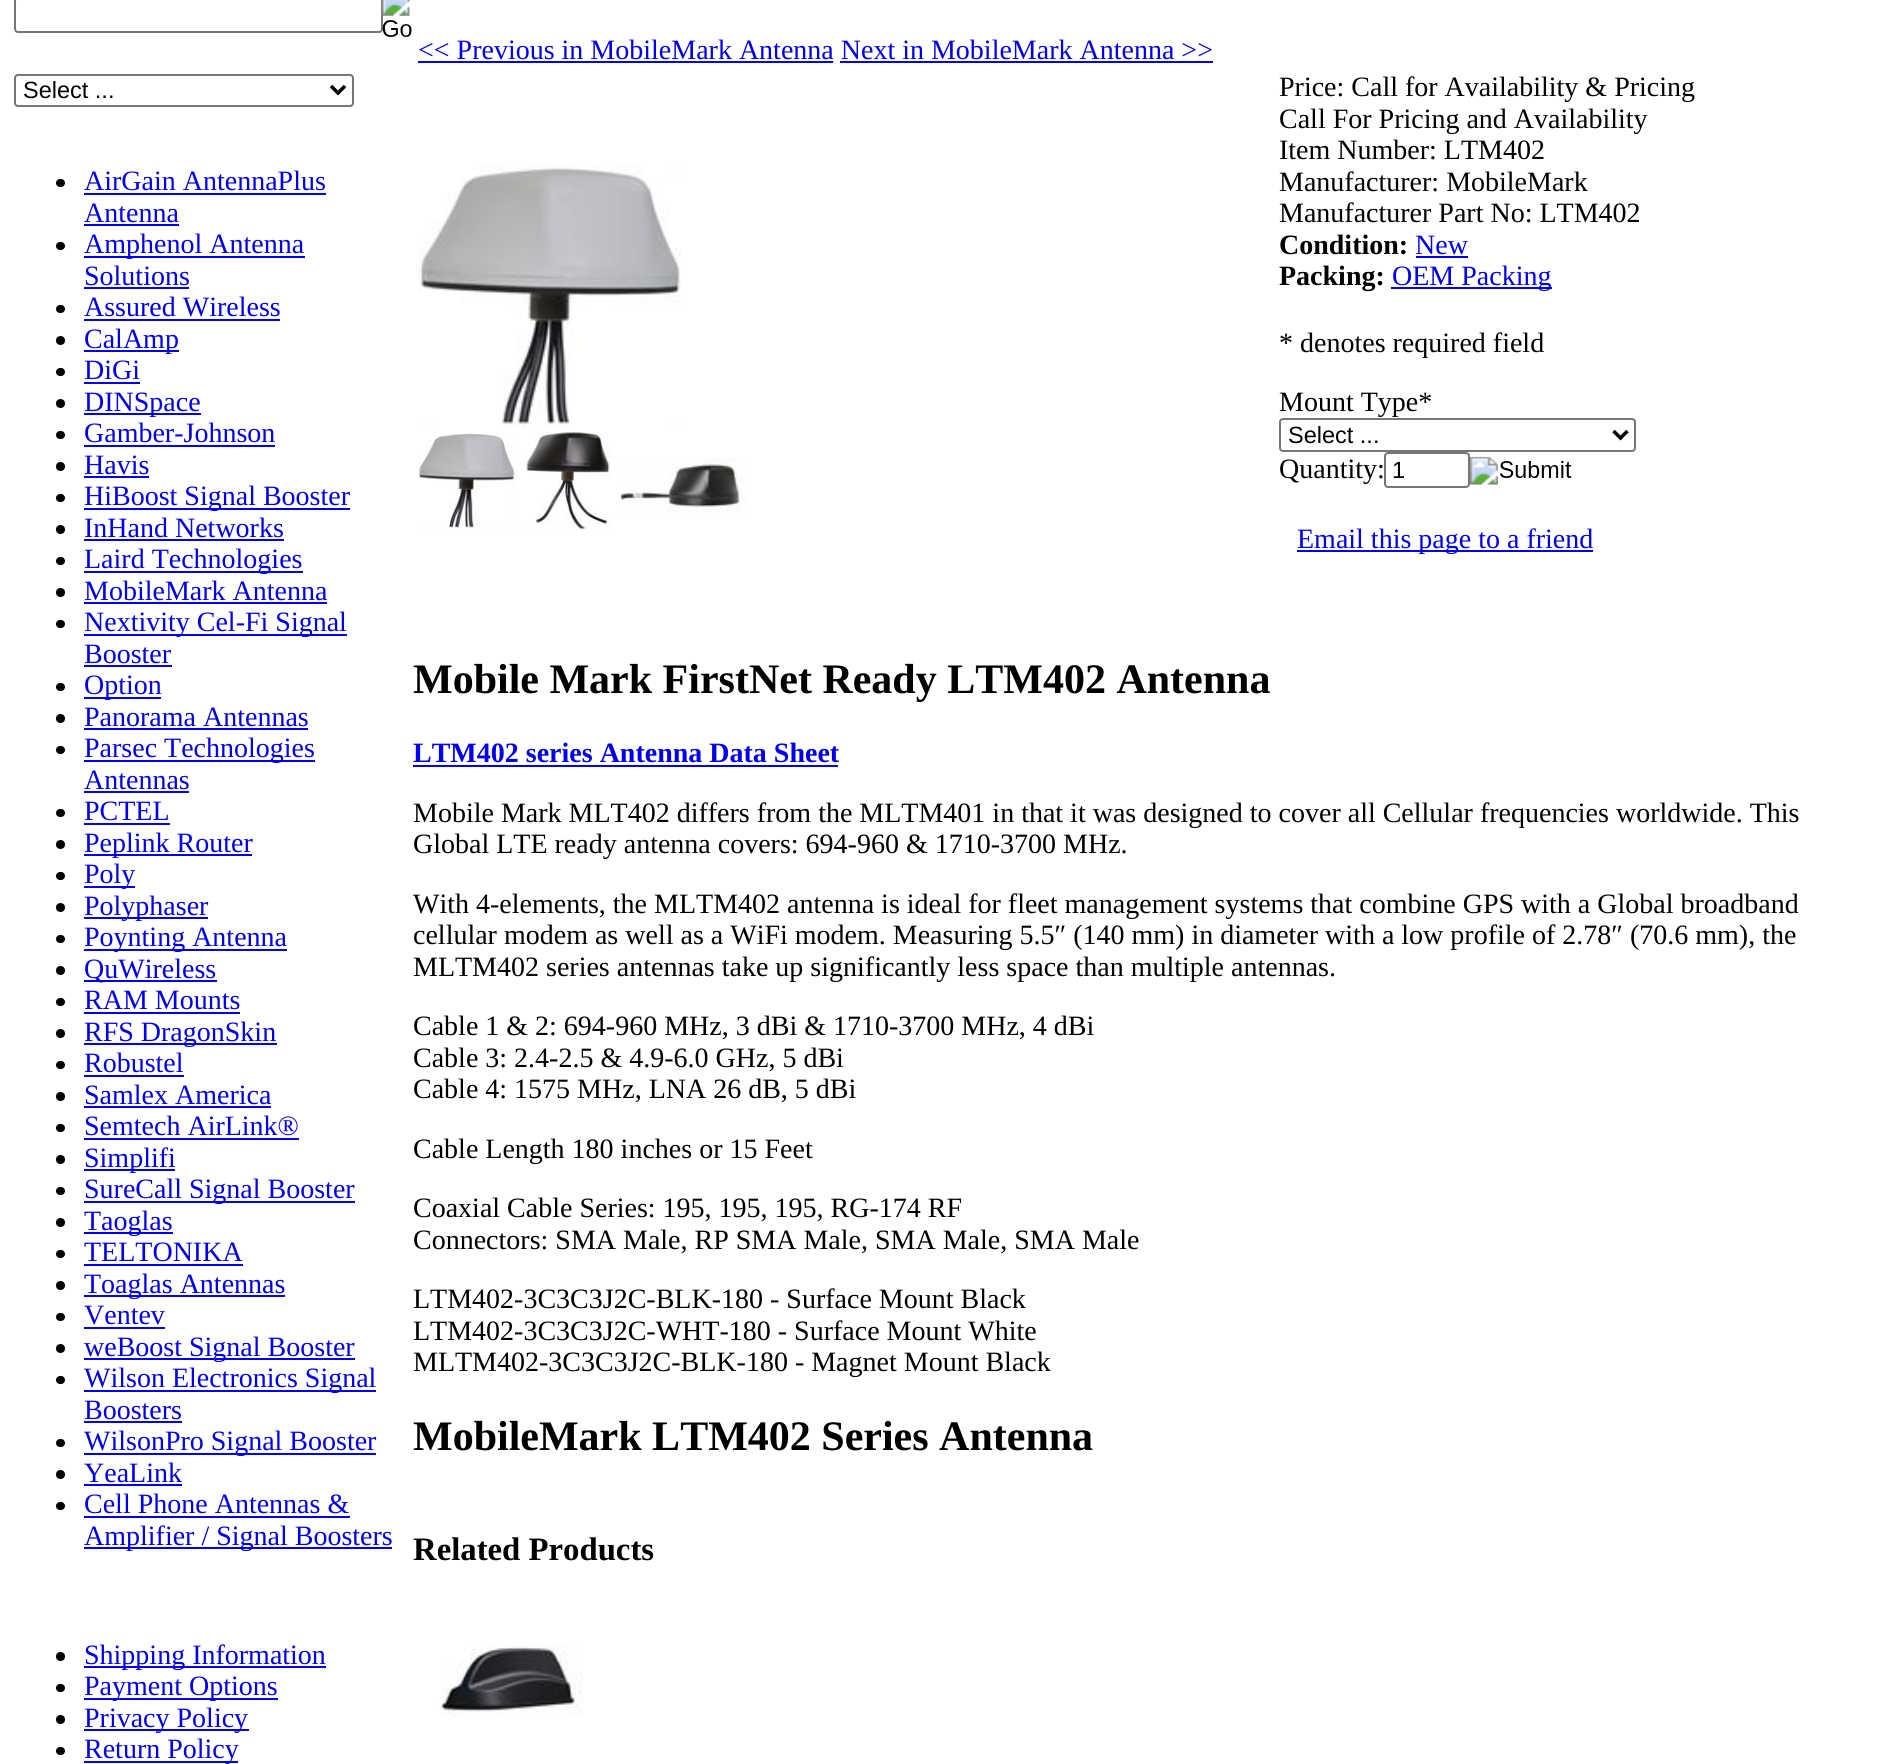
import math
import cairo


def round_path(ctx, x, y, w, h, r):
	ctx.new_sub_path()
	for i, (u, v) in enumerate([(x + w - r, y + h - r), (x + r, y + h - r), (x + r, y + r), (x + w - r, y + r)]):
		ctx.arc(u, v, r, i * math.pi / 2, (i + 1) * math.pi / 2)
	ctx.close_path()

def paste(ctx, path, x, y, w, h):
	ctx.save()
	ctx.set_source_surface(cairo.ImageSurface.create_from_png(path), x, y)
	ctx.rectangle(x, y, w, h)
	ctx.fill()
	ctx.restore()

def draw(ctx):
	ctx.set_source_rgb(1, 1, 1)
	ctx.paint()
	round_path(ctx, 15, -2, 367, 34, 3)
	ctx.set_source_rgb(0.463, 0.463, 0.463)
	ctx.stroke()
	paste(ctx, 'media/1.png', 381, 0, 31, 37)
	round_path(ctx, 15, 75, 338, 31, 3)
	ctx.stroke()
	ctx.new_path()
	ctx.move_to(331, 86)
	ctx.line_to(338, 93)
	ctx.line_to(345, 86)
	ctx.set_source_rgb(0, 0, 0)
	ctx.set_line_width(3.5)
	ctx.stroke()
	ctx.select_font_face('Liberation Sans')
	ctx.set_font_size(23.5)
	ctx.move_to(23, 98)
	ctx.show_text('Select ...')
	round_path(ctx, 56, 179, 9, 8, 4)
	ctx.fill()
	ctx.select_font_face('Liberation Serif')
	ctx.set_font_size(28)
	ctx.set_source_rgb(0, 0, 0.933)
	ctx.move_to(84, 190)
	ctx.show_text('AirGain AntennaPlus')
	ctx.rectangle(84, 193, 242, 2)
	ctx.fill()
	ctx.move_to(84, 222)
	ctx.show_text('Antenna')
	ctx.rectangle(84, 224, 95, 2)
	ctx.fill()
	ctx.set_source_rgb(0, 0, 0)
	round_path(ctx, 56, 242, 9, 8, 4)
	ctx.fill()
	ctx.set_source_rgb(0, 0, 0.933)
	ctx.rectangle(84, 256, 221, 2)
	ctx.fill()
	ctx.move_to(84, 253)
	ctx.show_text('Amphenol Antenna')
	ctx.move_to(84, 285)
	ctx.show_text('Solutions')
	ctx.rectangle(84, 287, 105, 2)
	ctx.fill()
	ctx.set_source_rgb(0, 0, 0)
	round_path(ctx, 56, 305, 9, 8, 4)
	ctx.fill()
	ctx.set_source_rgb(0, 0, 0.933)
	ctx.move_to(84, 316)
	ctx.show_text('Assured Wireless')
	ctx.rectangle(84, 319, 196, 2)
	ctx.fill()
	ctx.set_source_rgb(0, 0, 0)
	ctx.arc(60.5, 340.5, 4.5, 0, 2 * math.pi)
	ctx.fill()
	ctx.set_source_rgb(0, 0, 0.933)
	ctx.rectangle(84, 350, 95, 2)
	ctx.fill()
	ctx.move_to(84, 348)
	ctx.show_text('CalAmp')
	ctx.set_source_rgb(0, 0, 0)
	round_path(ctx, 56, 368, 9, 8, 4)
	ctx.fill()
	ctx.set_source_rgb(0, 0, 0.933)
	ctx.move_to(84, 379)
	ctx.show_text('DiGi')
	ctx.rectangle(84, 382, 56, 2)
	ctx.fill()
	ctx.set_source_rgb(0, 0, 0)
	ctx.arc(60.5, 403.5, 4.5, 0, 2 * math.pi)
	ctx.fill()
	ctx.set_source_rgb(0, 0, 0.933)
	ctx.rectangle(84, 413, 117, 2)
	ctx.fill()
	ctx.move_to(84, 411)
	ctx.show_text('DINSpace')
	ctx.set_source_rgb(0, 0, 0)
	round_path(ctx, 56, 431, 9, 8, 4)
	ctx.fill()
	ctx.set_source_rgb(0, 0, 0.933)
	ctx.move_to(84, 442)
	ctx.show_text('Gamber-Johnson')
	ctx.rectangle(84, 445, 191, 2)
	ctx.fill()
	ctx.set_source_rgb(0, 0, 0)
	ctx.arc(60.5, 466.5, 4.5, 0, 2 * math.pi)
	ctx.fill()
	ctx.set_source_rgb(0, 0, 0.933)
	ctx.move_to(84, 474)
	ctx.show_text('Havis')
	ctx.rectangle(84, 476, 65, 2)
	ctx.fill()
	ctx.set_source_rgb(0, 0, 0)
	round_path(ctx, 56, 494, 9, 8, 4)
	ctx.fill()
	ctx.set_source_rgb(0, 0, 0.933)
	ctx.rectangle(84, 508, 266, 2)
	ctx.fill()
	ctx.move_to(84, 505)
	ctx.show_text('HiBoost Signal Booster')
	ctx.set_source_rgb(0, 0, 0)
	ctx.new_path()
	ctx.arc(60.5, 529.5, 4.5, 0, 2 * math.pi)
	ctx.fill()
	ctx.set_source_rgb(0, 0, 0.933)
	ctx.move_to(84, 537)
	ctx.show_text('InHand Networks')
	ctx.rectangle(84, 539, 200, 2)
	ctx.fill()
	ctx.set_source_rgb(0, 0, 0)
	round_path(ctx, 56, 557, 9, 8, 4)
	ctx.fill()
	ctx.set_source_rgb(0, 0, 0.933)
	ctx.rectangle(84, 571, 219, 2)
	ctx.fill()
	ctx.move_to(84, 568)
	ctx.show_text('Laird Technologies')
	ctx.set_source_rgb(0, 0, 0)
	ctx.new_path()
	ctx.arc(60.5, 592.5, 4.5, 0, 2 * math.pi)
	ctx.fill()
	ctx.set_source_rgb(0, 0, 0.933)
	ctx.move_to(84, 600)
	ctx.show_text('MobileMark Antenna')
	ctx.rectangle(84, 602, 243, 2)
	ctx.fill()
	ctx.set_source_rgb(0, 0, 0)
	round_path(ctx, 56, 620, 9, 8, 4)
	ctx.fill()
	ctx.set_source_rgb(0, 0, 0.933)
	ctx.rectangle(84, 634, 263, 2)
	ctx.fill()
	ctx.move_to(84, 631)
	ctx.show_text('Nextivity Cel-Fi Signal')
	ctx.move_to(84, 663)
	ctx.show_text('Booster')
	ctx.rectangle(84, 665, 88, 2)
	ctx.fill()
	ctx.set_source_rgb(0, 0, 0)
	round_path(ctx, 56, 683, 9, 8, 4)
	ctx.fill()
	ctx.set_source_rgb(0, 0, 0.933)
	ctx.rectangle(84, 697, 77, 2)
	ctx.fill()
	ctx.move_to(84, 694)
	ctx.show_text('Option')
	ctx.set_source_rgb(0, 0, 0)
	ctx.new_path()
	ctx.arc(60.5, 718.5, 4.5, 0, 2 * math.pi)
	ctx.fill()
	ctx.set_source_rgb(0, 0, 0.933)
	ctx.move_to(84, 726)
	ctx.show_text('Panorama Antennas')
	ctx.rectangle(84, 728, 224, 2)
	ctx.fill()
	ctx.set_source_rgb(0, 0, 0)
	round_path(ctx, 56, 746, 9, 8, 4)
	ctx.fill()
	ctx.set_source_rgb(0, 0, 0.933)
	ctx.rectangle(84, 760, 231, 2)
	ctx.fill()
	ctx.move_to(84, 757)
	ctx.show_text('Parsec Technologies')
	ctx.move_to(84, 789)
	ctx.show_text('Antennas')
	ctx.rectangle(84, 791, 105, 2)
	ctx.fill()
	ctx.set_source_rgb(0, 0, 0)
	round_path(ctx, 56, 809, 9, 8, 4)
	ctx.fill()
	ctx.set_source_rgb(0, 0, 0.933)
	ctx.move_to(84, 820)
	ctx.show_text('PCTEL')
	ctx.rectangle(84, 823, 86, 2)
	ctx.fill()
	ctx.set_source_rgb(0, 0, 0)
	ctx.arc(60.5, 844.5, 4.5, 0, 2 * math.pi)
	ctx.fill()
	ctx.set_source_rgb(0, 0, 0.933)
	ctx.rectangle(84, 854, 168, 2)
	ctx.fill()
	ctx.move_to(84, 852)
	ctx.show_text('Peplink Router')
	ctx.set_source_rgb(0, 0, 0)
	round_path(ctx, 56, 872, 9, 8, 4)
	ctx.fill()
	ctx.set_source_rgb(0, 0, 0.933)
	ctx.rectangle(84, 886, 51, 2)
	ctx.fill()
	ctx.move_to(84, 883)
	ctx.show_text('Poly')
	ctx.set_source_rgb(0, 0, 0)
	ctx.new_path()
	ctx.arc(60.5, 907.5, 4.5, 0, 2 * math.pi)
	ctx.fill()
	ctx.set_source_rgb(0, 0, 0.933)
	ctx.rectangle(84, 917, 124, 2)
	ctx.fill()
	ctx.move_to(84, 915)
	ctx.show_text('Polyphaser')
	ctx.set_source_rgb(0, 0, 0)
	round_path(ctx, 56, 935, 9, 8, 4)
	ctx.fill()
	ctx.set_source_rgb(0, 0, 0.933)
	ctx.rectangle(84, 949, 203, 2)
	ctx.fill()
	ctx.move_to(84, 946)
	ctx.show_text('Poynting Antenna')
	ctx.set_source_rgb(0, 0, 0)
	ctx.new_path()
	ctx.arc(60.5, 970.5, 4.5, 0, 2 * math.pi)
	ctx.fill()
	ctx.set_source_rgb(0, 0, 0.933)
	ctx.rectangle(84, 980, 133, 2)
	ctx.fill()
	ctx.move_to(84, 978)
	ctx.show_text('QuWireless')
	ctx.set_source_rgb(0, 0, 0)
	round_path(ctx, 56, 998, 9, 8, 4)
	ctx.fill()
	ctx.set_source_rgb(0, 0, 0.933)
	ctx.move_to(84, 1009)
	ctx.show_text('RAM Mounts')
	ctx.rectangle(84, 1012, 156, 2)
	ctx.fill()
	ctx.set_source_rgb(0, 0, 0)
	ctx.arc(60.5, 1033.5, 4.5, 0, 2 * math.pi)
	ctx.fill()
	ctx.set_source_rgb(0, 0, 0.933)
	ctx.rectangle(84, 1043, 193, 2)
	ctx.fill()
	ctx.move_to(84, 1041)
	ctx.show_text('RFS DragonSkin')
	ctx.set_source_rgb(0, 0, 0)
	round_path(ctx, 56, 1061, 9, 8, 4)
	ctx.fill()
	ctx.set_source_rgb(0, 0, 0.933)
	ctx.move_to(84, 1072)
	ctx.show_text('Robustel')
	ctx.rectangle(84, 1075, 100, 2)
	ctx.fill()
	ctx.set_source_rgb(0, 0, 0)
	ctx.arc(60.5, 1096.5, 4.5, 0, 2 * math.pi)
	ctx.fill()
	ctx.set_source_rgb(0, 0, 0.933)
	ctx.move_to(84, 1104)
	ctx.show_text('Samlex America')
	ctx.rectangle(84, 1106, 187, 2)
	ctx.fill()
	ctx.set_source_rgb(0, 0, 0)
	round_path(ctx, 56, 1124, 9, 8, 4)
	ctx.fill()
	ctx.set_source_rgb(0, 0, 0.933)
	ctx.move_to(84, 1135)
	ctx.show_text('Semtech AirLink®')
	ctx.rectangle(84, 1138, 215, 2)
	ctx.fill()
	ctx.set_source_rgb(0, 0, 0)
	ctx.arc(60.5, 1159.5, 4.5, 0, 2 * math.pi)
	ctx.fill()
	ctx.set_source_rgb(0, 0, 0.933)
	ctx.rectangle(84, 1169, 91, 2)
	ctx.fill()
	ctx.move_to(84, 1167)
	ctx.show_text('Simplifi')
	ctx.set_source_rgb(0, 0, 0)
	round_path(ctx, 56, 1187, 9, 8, 4)
	ctx.fill()
	ctx.set_source_rgb(0, 0, 0.933)
	ctx.rectangle(84, 1201, 271, 2)
	ctx.fill()
	ctx.move_to(84, 1198)
	ctx.show_text('SureCall Signal Booster')
	ctx.set_source_rgb(0, 0, 0)
	ctx.new_path()
	ctx.arc(60.5, 1222.5, 4.5, 0, 2 * math.pi)
	ctx.fill()
	ctx.set_source_rgb(0, 0, 0.933)
	ctx.rectangle(84, 1232, 89, 2)
	ctx.fill()
	ctx.move_to(84, 1230)
	ctx.show_text('Taoglas')
	ctx.set_source_rgb(0, 0, 0)
	round_path(ctx, 56, 1250, 9, 8, 4)
	ctx.fill()
	ctx.set_source_rgb(0, 0, 0.933)
	ctx.move_to(84, 1261)
	ctx.show_text('TELTONIKA')
	ctx.rectangle(84, 1264, 159, 2)
	ctx.fill()
	ctx.set_source_rgb(0, 0, 0)
	ctx.arc(60.5, 1285.5, 4.5, 0, 2 * math.pi)
	ctx.fill()
	ctx.set_source_rgb(0, 0, 0.933)
	ctx.rectangle(84, 1295, 201, 2)
	ctx.fill()
	ctx.move_to(84, 1293)
	ctx.show_text('Toaglas Antennas')
	ctx.set_source_rgb(0, 0, 0)
	round_path(ctx, 56, 1313, 9, 8, 4)
	ctx.fill()
	ctx.set_source_rgb(0, 0, 0.933)
	ctx.move_to(84, 1324)
	ctx.show_text('Ventev')
	ctx.rectangle(84, 1327, 81, 2)
	ctx.fill()
	ctx.set_source_rgb(0, 0, 0)
	ctx.arc(60.5, 1348.5, 4.5, 0, 2 * math.pi)
	ctx.fill()
	ctx.set_source_rgb(0, 0, 0.933)
	ctx.rectangle(84, 1358, 271, 2)
	ctx.fill()
	ctx.move_to(84, 1356)
	ctx.show_text('weBoost Signal Booster')
	ctx.set_source_rgb(0, 0, 0)
	round_path(ctx, 56, 1376, 9, 8, 4)
	ctx.fill()
	ctx.set_source_rgb(0, 0, 0.933)
	ctx.rectangle(84, 1390, 292, 2)
	ctx.fill()
	ctx.move_to(84, 1387)
	ctx.show_text('Wilson Electronics Signal')
	ctx.move_to(84, 1419)
	ctx.show_text('Boosters')
	ctx.rectangle(84, 1421, 98, 2)
	ctx.fill()
	ctx.set_source_rgb(0, 0, 0)
	round_path(ctx, 56, 1439, 9, 8, 4)
	ctx.fill()
	ctx.set_source_rgb(0, 0, 0.933)
	ctx.rectangle(84, 1453, 292, 2)
	ctx.fill()
	ctx.move_to(84, 1450)
	ctx.show_text('WilsonPro Signal Booster')
	ctx.set_source_rgb(0, 0, 0)
	ctx.new_path()
	ctx.arc(60.5, 1474.5, 4.5, 0, 2 * math.pi)
	ctx.fill()
	ctx.set_source_rgb(0, 0, 0.933)
	ctx.move_to(84, 1482)
	ctx.show_text('YeaLink')
	ctx.rectangle(84, 1484, 98, 2)
	ctx.fill()
	ctx.set_source_rgb(0, 0, 0)
	round_path(ctx, 56, 1502, 9, 8, 4)
	ctx.fill()
	ctx.set_source_rgb(0, 0, 0.933)
	ctx.move_to(84, 1513)
	ctx.show_text('Cell Phone Antennas &')
	ctx.rectangle(84, 1516, 266, 2)
	ctx.fill()
	ctx.rectangle(84, 1547, 308, 2)
	ctx.fill()
	ctx.move_to(84, 1545)
	ctx.show_text('Amplifier / Signal Boosters')
	ctx.set_source_rgb(0, 0, 0)
	ctx.new_path()
	ctx.arc(60.5, 1656.5, 4.5, 0, 2 * math.pi)
	ctx.fill()
	ctx.set_source_rgb(0, 0, 0.933)
	ctx.rectangle(84, 1666, 242, 2)
	ctx.fill()
	ctx.move_to(84, 1664)
	ctx.show_text('Shipping Information')
	ctx.set_source_rgb(0, 0, 0)
	round_path(ctx, 56, 1684, 9, 8, 4)
	ctx.fill()
	ctx.set_source_rgb(0, 0, 0.933)
	ctx.rectangle(84, 1698, 194, 2)
	ctx.fill()
	ctx.move_to(84, 1695)
	ctx.show_text('Payment Options')
	ctx.set_source_rgb(0, 0, 0)
	ctx.new_path()
	ctx.arc(60.5, 1719.5, 4.5, 0, 2 * math.pi)
	ctx.fill()
	ctx.set_source_rgb(0, 0, 0.933)
	ctx.rectangle(84, 1729, 165, 2)
	ctx.fill()
	ctx.move_to(84, 1727)
	ctx.show_text('Privacy Policy')
	ctx.set_source_rgb(0, 0, 0)
	round_path(ctx, 56, 1747, 9, 8, 4)
	ctx.fill()
	ctx.set_source_rgb(0, 0, 0.933)
	ctx.rectangle(84, 1761, 154, 2)
	ctx.fill()
	ctx.move_to(84, 1758)
	ctx.show_text('Return Policy')
	ctx.move_to(418, 59)
	ctx.show_text('<< Previous in MobileMark Antenna Next in MobileMark Antenna >>')
	ctx.rectangle(418, 61, 415, 2)
	ctx.fill()
	ctx.rectangle(840, 61, 373, 2)
	ctx.fill()
	paste(ctx, 'media/2.png', 418, 165, 263, 262)
	paste(ctx, 'media/3.png', 418, 433, 97, 96)
	paste(ctx, 'media/4.png', 526, 432, 86, 97)
	paste(ctx, 'media/5.png', 621, 457, 128, 56)
	ctx.set_source_rgb(0, 0, 0)
	for x, y, s in [
		(1279, 96, 'Price: Call for Availability & Pricing'),
		(1279, 128, 'Call For Pricing and Availability'),
		(1279, 159, 'Item Number: LTM402'),
		(1279, 191, 'Manufacturer: MobileMark'),
		(1279, 222, 'Manufacturer Part No: LTM402'),
	]:
		ctx.move_to(x, y)
		ctx.show_text(s)
	ctx.select_font_face('Liberation Serif', cairo.FONT_SLANT_NORMAL, cairo.FONT_WEIGHT_BOLD)
	ctx.move_to(1279, 254)
	ctx.show_text('Condition:')
	ctx.select_font_face('Liberation Serif')
	ctx.set_source_rgb(0, 0, 0.933)
	ctx.move_to(1415, 254)
	ctx.show_text('New')
	ctx.rectangle(1416, 256, 52, 2)
	ctx.fill()
	ctx.select_font_face('Liberation Serif', cairo.FONT_SLANT_NORMAL, cairo.FONT_WEIGHT_BOLD)
	ctx.set_source_rgb(0, 0, 0)
	ctx.move_to(1279, 285)
	ctx.show_text('Packing:')
	ctx.set_source_rgb(0, 0, 0.933)
	ctx.rectangle(1391, 287, 161, 2)
	ctx.fill()
	ctx.select_font_face('Liberation Serif')
	ctx.move_to(1392, 285)
	ctx.show_text('OEM Packing')
	ctx.set_source_rgb(0, 0, 0)
	ctx.move_to(1279, 352)
	ctx.show_text('* denotes required field')
	ctx.move_to(1279, 411)
	ctx.show_text('Mount Type*')
	round_path(ctx, 1280, 419, 355, 32, 3)
	ctx.set_source_rgb(0.463, 0.463, 0.463)
	ctx.set_line_width(2)
	ctx.stroke()
	ctx.new_path()
	ctx.move_to(1613.5, 431)
	ctx.line_to(1620.5, 438)
	ctx.line_to(1627.5, 431)
	ctx.set_source_rgb(0, 0, 0)
	ctx.set_line_width(3.5)
	ctx.stroke()
	ctx.select_font_face('Liberation Sans')
	ctx.set_font_size(23.5)
	ctx.move_to(1288, 443)
	ctx.show_text('Select ...')
	ctx.select_font_face('Liberation Serif')
	ctx.set_font_size(28)
	ctx.move_to(1279, 478)
	ctx.show_text('Quantity:')
	round_path(ctx, 1385, 453, 84, 34, 3)
	ctx.set_source_rgb(0.463, 0.463, 0.463)
	ctx.set_line_width(2)
	ctx.stroke()
	ctx.select_font_face('Liberation Sans')
	ctx.set_font_size(23.5)
	ctx.set_source_rgb(0, 0, 0)
	ctx.move_to(1392, 478)
	ctx.show_text('1')
	paste(ctx, 'media/6.png', 1470, 456, 102, 29)
	ctx.set_source_rgb(0, 0, 0.933)
	ctx.rectangle(1297, 550, 296, 2)
	ctx.fill()
	ctx.select_font_face('Liberation Serif')
	ctx.set_font_size(28)
	ctx.move_to(1297, 548)
	ctx.show_text('Email this page to a friend')
	ctx.select_font_face('Liberation Serif', cairo.FONT_SLANT_NORMAL, cairo.FONT_WEIGHT_BOLD)
	ctx.set_font_size(42)
	ctx.set_source_rgb(0, 0, 0)
	ctx.move_to(413, 693)
	ctx.show_text('Mobile Mark FirstNet Ready LTM402 Antenna')
	ctx.set_font_size(28)
	ctx.set_source_rgb(0, 0, 0.933)
	ctx.move_to(413, 762)
	ctx.show_text('LTM402 series Antenna Data Sheet')
	ctx.rectangle(413, 765, 425, 2)
	ctx.fill()
	ctx.select_font_face('Liberation Serif')
	ctx.set_source_rgb(0, 0, 0)
	for x, y, s in [
		(413, 822, 'Mobile Mark MLT402 differs from the MLTM401 in that it was designed to cover all Cellular frequencies worldwide. This'),
		(413, 853, 'Global LTE ready antenna covers: 694-960 & 1710-3700 MHz.'),
		(413, 913, 'With 4-elements, the MLTM402 antenna is ideal for fleet management systems that combine GPS with a Global broadband'),
		(413, 944, 'cellular modem as well as a WiFi modem. Measuring 5.5″ (140 mm) in diameter with a low profile of 2.78″ (70.6 mm), the'),
		(413, 976, 'MLTM402 series antennas take up significantly less space than multiple antennas.'),
		(413, 1035, 'Cable 1 & 2: 694-960 MHz, 3 dBi & 1710-3700 MHz, 4 dBi'),
		(413, 1067, 'Cable 3: 2.4-2.5 & 4.9-6.0 GHz, 5 dBi'),
		(413, 1098, 'Cable 4: 1575 MHz, LNA 26 dB, 5 dBi'),
		(413, 1158, 'Cable Length 180 inches or 15 Feet'),
		(413, 1217, 'Coaxial Cable Series: 195, 195, 195, RG-174 RF'),
		(413, 1249, 'Connectors: SMA Male, RP SMA Male, SMA Male, SMA Male'),
		(413, 1308, 'LTM402-3C3C3J2C-BLK-180 - Surface Mount Black'),
		(413, 1340, 'LTM402-3C3C3J2C-WHT-180 - Surface Mount White'),
		(413, 1371, 'MLTM402-3C3C3J2C-BLK-180 - Magnet Mount Black'),
	]:
		ctx.move_to(x, y)
		ctx.show_text(s)
	ctx.select_font_face('Liberation Serif', cairo.FONT_SLANT_NORMAL, cairo.FONT_WEIGHT_BOLD)
	ctx.set_font_size(42)
	ctx.move_to(413, 1450)
	ctx.show_text('MobileMark LTM402 Series Antenna')
	ctx.set_font_size(32.75)
	ctx.move_to(413, 1560)
	ctx.show_text('Related Products')
	paste(ctx, 'media/7.png', 439, 1645, 144, 71)


surface = cairo.ImageSurface(cairo.FORMAT_RGB24, 1879, 1764)
ctx = cairo.Context(surface)
options = cairo.FontOptions()
options.set_hint_metrics(cairo.HINT_METRICS_OFF)
options.set_hint_style(cairo.HINT_STYLE_NONE)
ctx.set_font_options(options)
ctx.set_miter_limit(4)
draw(ctx)
surface.write_to_png('image.png')
